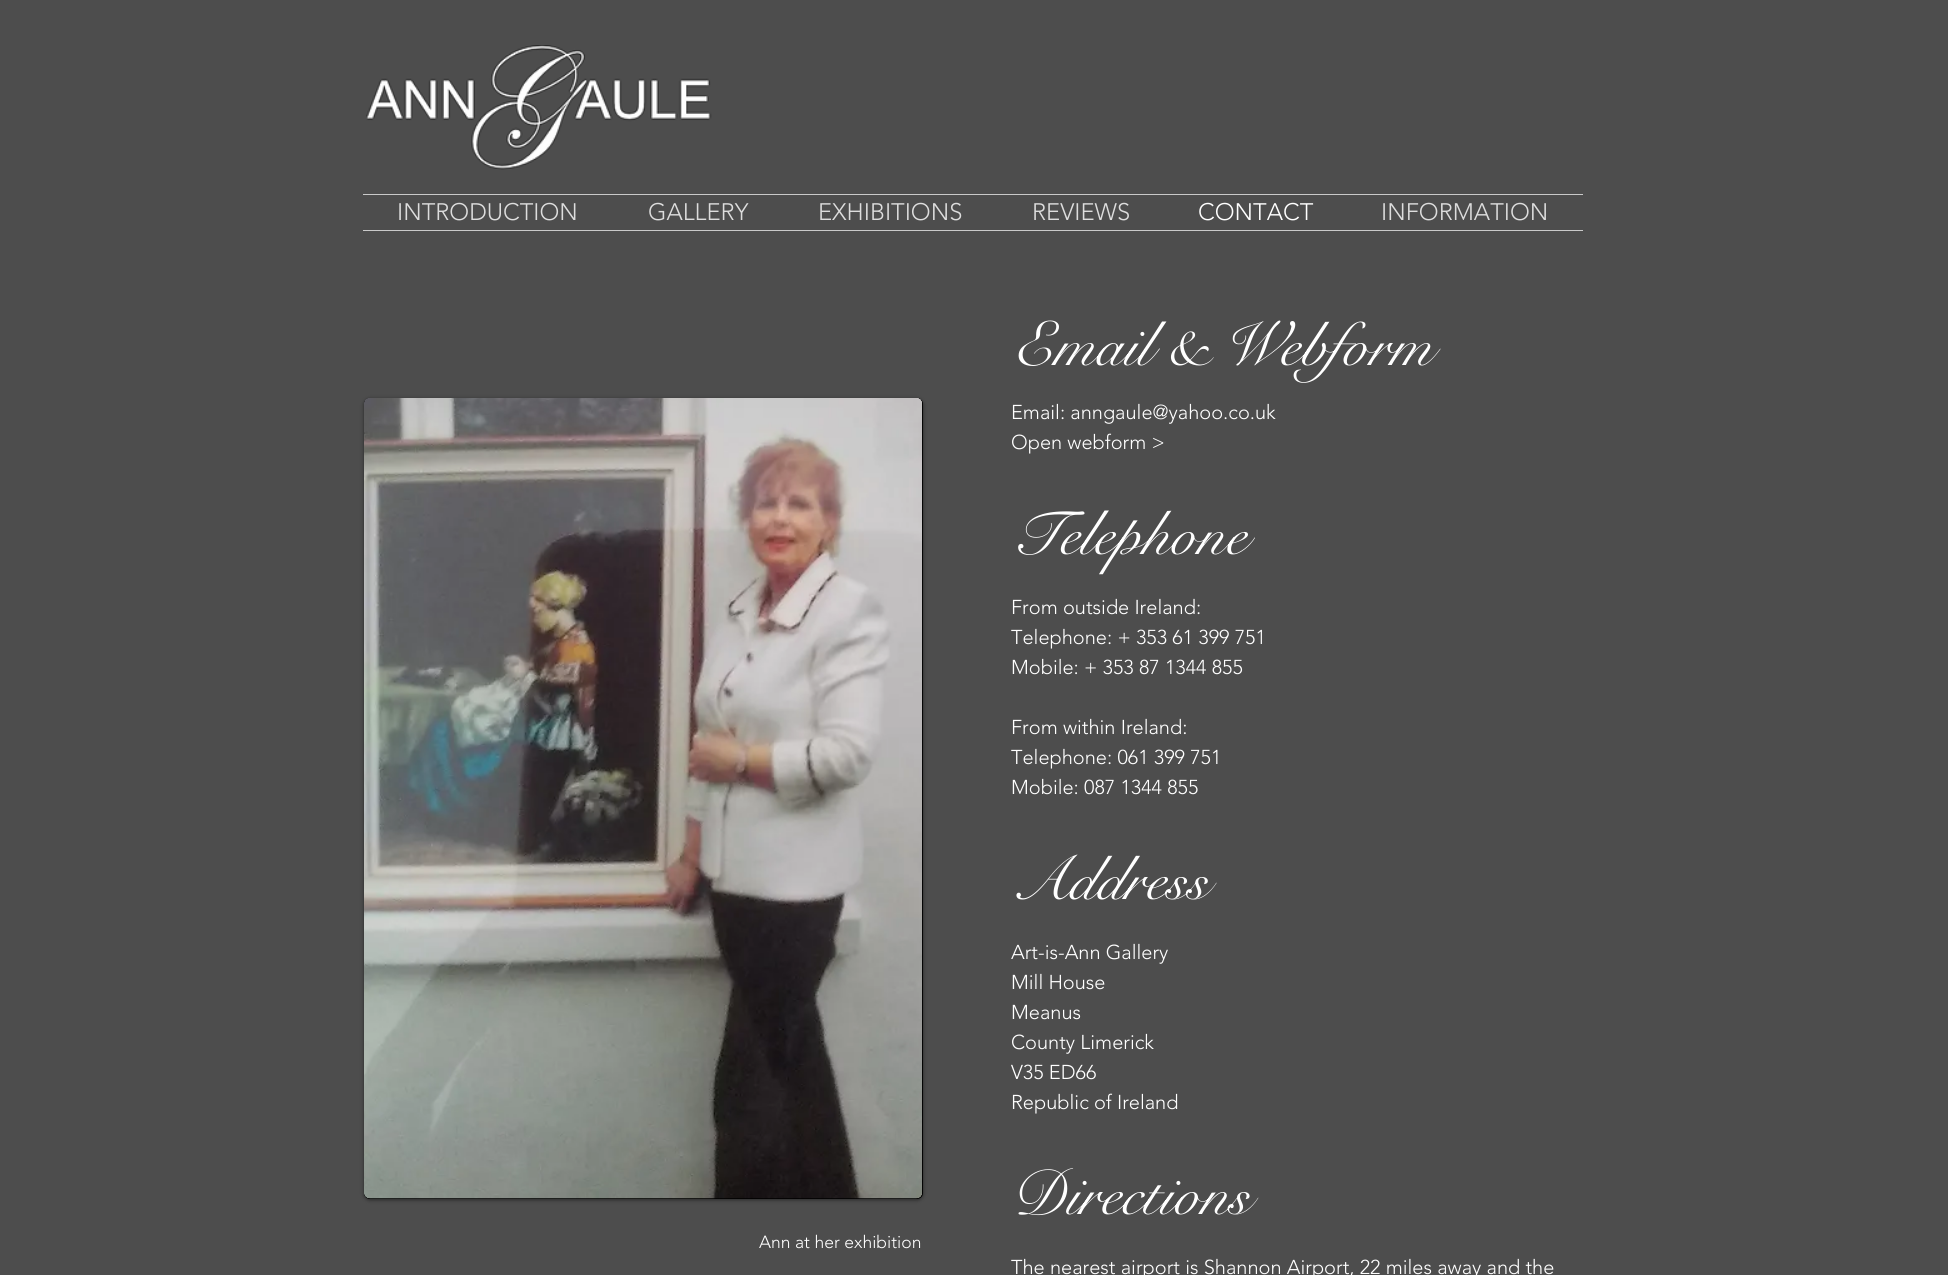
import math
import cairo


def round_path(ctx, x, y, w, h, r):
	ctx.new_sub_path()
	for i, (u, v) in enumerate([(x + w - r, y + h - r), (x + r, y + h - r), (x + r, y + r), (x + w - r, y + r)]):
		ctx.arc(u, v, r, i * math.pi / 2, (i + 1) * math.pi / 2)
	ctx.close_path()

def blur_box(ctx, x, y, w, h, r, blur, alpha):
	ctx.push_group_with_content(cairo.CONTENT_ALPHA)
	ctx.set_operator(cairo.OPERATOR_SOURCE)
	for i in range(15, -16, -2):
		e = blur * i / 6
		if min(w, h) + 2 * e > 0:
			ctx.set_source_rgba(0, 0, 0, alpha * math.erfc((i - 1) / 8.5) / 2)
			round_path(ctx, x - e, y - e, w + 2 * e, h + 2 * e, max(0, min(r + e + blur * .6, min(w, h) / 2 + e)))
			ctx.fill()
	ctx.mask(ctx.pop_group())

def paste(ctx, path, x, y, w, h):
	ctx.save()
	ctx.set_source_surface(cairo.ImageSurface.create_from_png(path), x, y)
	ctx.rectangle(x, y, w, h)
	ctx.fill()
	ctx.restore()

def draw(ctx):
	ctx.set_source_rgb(0.302, 0.302, 0.302)
	ctx.paint()
	paste(ctx, 'media/1.png', 366, 45, 346, 125)
	ctx.set_source_rgb(0.792, 0.792, 0.792)
	ctx.rectangle(363, 194, 1220, 1)
	ctx.fill()
	ctx.rectangle(363, 230, 1220, 1)
	ctx.fill()
	ctx.select_font_face('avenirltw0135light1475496 Light')
	ctx.set_font_size(23.75)
	ctx.set_source_rgb(0.867, 0.867, 0.867)
	for x, y, s in [
		(397, 220, 'INTRODUCTION'),
		(648, 220, 'GALLERY'),
		(818, 220, 'EXHIBITIONS'),
		(1032, 220, 'REVIEWS'),
	]:
		ctx.move_to(x, y)
		ctx.show_text(s)
	ctx.set_source_rgb(1, 1, 1)
	ctx.move_to(1198, 220)
	ctx.show_text('CONTACT')
	ctx.set_source_rgb(0.867, 0.867, 0.867)
	ctx.move_to(1381, 220)
	ctx.show_text('INFORMATION')
	ctx.select_font_face('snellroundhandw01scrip')
	ctx.set_font_size(62.5)
	ctx.set_source_rgb(1, 1, 1)
	ctx.move_to(1013, 365)
	ctx.show_text('Email & Webform')
	ctx.set_source_rgb(0, 0, 0)
	blur_box(ctx, 364, 399, 559, 801, 6, 2, 0.5)
	ctx.set_source_rgb(0, 0, 0)
	round_path(ctx, 364, 398, 559, 801, 6)
	ctx.fill()
	paste(ctx, 'media/2.png', 364, 398, 559, 801)
	ctx.select_font_face('avenirltw0135light1475496 Light')
	ctx.set_font_size(20)
	ctx.set_source_rgb(1, 1, 1)
	ctx.move_to(1011, 419)
	ctx.show_text('Email: anngaule@yahoo.co.uk')
	ctx.move_to(1011, 449)
	ctx.show_text('Open webform >')
	ctx.select_font_face('snellroundhandw01scrip')
	ctx.set_font_size(62.5)
	ctx.move_to(1011, 554)
	ctx.show_text('Telephone')
	ctx.select_font_face('avenirltw0135light1475496 Light')
	ctx.set_font_size(20)
	for x, y, s in [
		(1011, 614, 'From outside Ireland:'),
		(1011, 644, 'Telephone: + 353 61 399 751'),
		(1011, 674, 'Mobile: + 353 87 1344 855'),
		(1011, 734, 'From within Ireland:'),
		(1011, 764, 'Telephone: 061 399 751'),
		(1011, 794, 'Mobile: 087 1344 855'),
	]:
		ctx.move_to(x, y)
		ctx.show_text(s)
	ctx.select_font_face('snellroundhandw01scrip')
	ctx.set_font_size(62.5)
	ctx.move_to(1011, 899)
	ctx.show_text('Address')
	ctx.select_font_face('avenirltw0135light1475496 Light')
	ctx.set_font_size(20)
	for x, y, s in [
		(1011, 959, 'Art-is-Ann Gallery'),
		(1011, 989, 'Mill House'),
		(1011, 1019, 'Meanus'),
		(1011, 1049, 'County Limerick'),
		(1011, 1079, 'V35 ED66'),
		(1011, 1109, 'Republic of Ireland'),
	]:
		ctx.move_to(x, y)
		ctx.show_text(s)
	ctx.select_font_face('snellroundhandw01scrip')
	ctx.set_font_size(62.5)
	ctx.move_to(1011, 1214)
	ctx.show_text('Directions')
	ctx.select_font_face('avenirltw0135light1475496 Light')
	ctx.set_font_size(20)
	ctx.move_to(1011, 1274)
	ctx.show_text('The nearest airport is Shannon Airport, 22 miles away and the')
	ctx.set_font_size(17.5)
	ctx.move_to(759, 1248)
	ctx.show_text('Ann at her exhibition')


surface = cairo.ImageSurface(cairo.FORMAT_RGB24, 1948, 1275)
ctx = cairo.Context(surface)
options = cairo.FontOptions()
options.set_hint_metrics(cairo.HINT_METRICS_OFF)
options.set_hint_style(cairo.HINT_STYLE_NONE)
ctx.set_font_options(options)
ctx.set_miter_limit(4)
draw(ctx)
surface.write_to_png('image.png')
